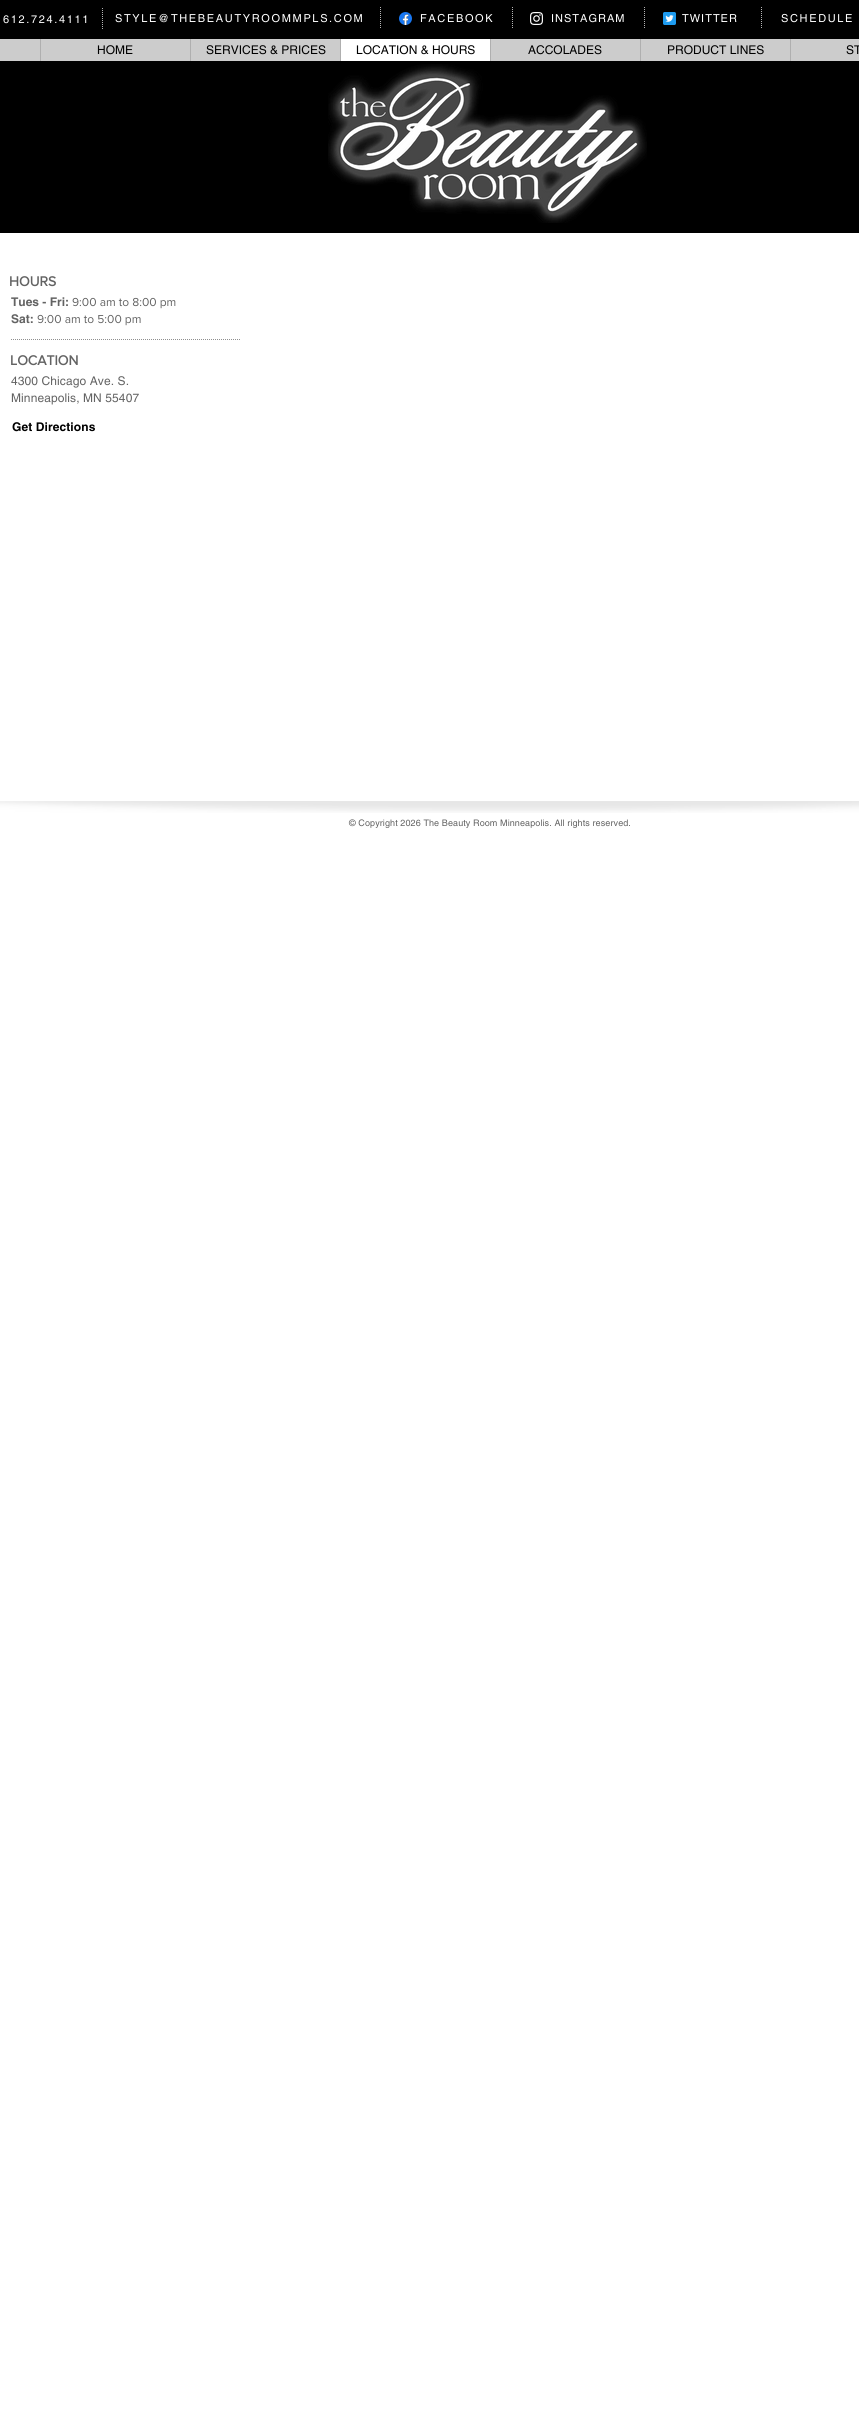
import math
import cairo


def write_spaced(ctx, x, y, s, letter, word):
	ctx.move_to(x, y)
	for ch in s:
		ctx.show_text(ch)
		ctx.rel_move_to(letter + word * (ch == ' '), 0)

def paste(ctx, path, x, y, w, h):
	ctx.save()
	ctx.set_source_surface(cairo.ImageSurface.create_from_png(path), x, y)
	ctx.rectangle(x, y, w, h)
	ctx.fill()
	ctx.restore()

def draw(ctx):
	ctx.set_source_rgb(1, 1, 1)
	ctx.paint()
	ctx.set_source_rgb(0, 0, 0)
	ctx.rectangle(0, 0, 859, 233)
	ctx.fill()
	ctx.new_path()
	ctx.move_to(102.5, 8)
	ctx.line_to(102.5, 30)
	ctx.set_source_rgb(0.706, 0.706, 0.706)
	ctx.set_line_width(1)
	ctx.set_dash([1, 1])
	ctx.stroke()
	ctx.select_font_face('helvetica')
	ctx.set_font_size(11)
	ctx.set_source_rgb(1, 1, 1)
	write_spaced(ctx, 3, 23, '612.724.4111', 1.65, 0)
	ctx.new_path()
	ctx.move_to(380.5, 7)
	ctx.line_to(380.5, 29)
	ctx.set_source_rgb(0.706, 0.706, 0.706)
	ctx.stroke()
	ctx.set_source_rgb(1, 1, 1)
	write_spaced(ctx, 115, 22, 'STYLE@THEBEAUTYROOMMPLS.COM', 1.65, 0)
	ctx.new_path()
	ctx.move_to(512.5, 7)
	ctx.line_to(512.5, 29)
	ctx.set_source_rgb(0.706, 0.706, 0.706)
	ctx.stroke()
	paste(ctx, 'media/1.png', 399, 12, 13, 13)
	ctx.set_source_rgb(1, 1, 1)
	write_spaced(ctx, 420, 22, 'FACEBOOK', 1.65, 0)
	ctx.new_path()
	ctx.move_to(644.5, 7)
	ctx.line_to(644.5, 29)
	ctx.set_source_rgb(0.706, 0.706, 0.706)
	ctx.stroke()
	paste(ctx, 'media/2.png', 530, 12, 13, 13)
	ctx.set_source_rgb(1, 1, 1)
	write_spaced(ctx, 551, 22, 'INSTAGRAM', 1, 0)
	ctx.new_path()
	ctx.move_to(761.5, 7)
	ctx.line_to(761.5, 29)
	ctx.set_source_rgb(0.706, 0.706, 0.706)
	ctx.stroke()
	paste(ctx, 'media/3.png', 663, 12, 13, 13)
	ctx.set_source_rgb(1, 1, 1)
	write_spaced(ctx, 682, 22, 'TWITTER', 1, 0)
	write_spaced(ctx, 781, 22, 'SCHEDULE', 1.65, 0)
	ctx.set_source_rgb(0.8, 0.8, 0.8)
	ctx.rectangle(0, 39, 859, 22)
	ctx.fill()
	ctx.set_source_rgb(0.686, 0.686, 0.686)
	ctx.rectangle(40, 39, 1, 22)
	ctx.fill()
	ctx.set_font_size(12)
	ctx.set_source_rgb(0, 0, 0)
	ctx.move_to(97, 54)
	ctx.show_text('HOME')
	ctx.set_source_rgb(0.686, 0.686, 0.686)
	ctx.rectangle(190, 39, 1, 22)
	ctx.fill()
	ctx.set_source_rgb(0, 0, 0)
	ctx.move_to(206, 54)
	ctx.show_text('SERVICES & PRICES')
	ctx.set_source_rgb(1, 1, 1)
	ctx.rectangle(341, 39, 149, 22)
	ctx.fill()
	ctx.set_source_rgb(0.686, 0.686, 0.686)
	ctx.rectangle(340, 39, 1, 22)
	ctx.fill()
	ctx.set_source_rgb(0, 0, 0)
	ctx.move_to(356, 54)
	ctx.show_text('LOCATION & HOURS')
	ctx.set_source_rgb(0.686, 0.686, 0.686)
	ctx.rectangle(490, 39, 1, 22)
	ctx.fill()
	ctx.set_source_rgb(0, 0, 0)
	ctx.move_to(528, 54)
	ctx.show_text('ACCOLADES')
	ctx.set_source_rgb(0.686, 0.686, 0.686)
	ctx.rectangle(640, 39, 1, 22)
	ctx.fill()
	ctx.set_source_rgb(0, 0, 0)
	ctx.move_to(667, 54)
	ctx.show_text('PRODUCT LINES')
	ctx.set_source_rgb(0.686, 0.686, 0.686)
	ctx.rectangle(790, 39, 1, 22)
	ctx.fill()
	ctx.set_source_rgb(0, 0, 0)
	ctx.move_to(846, 54)
	ctx.show_text('ST')
	paste(ctx, 'media/4.png', 328, 64, 319, 159)
	ctx.select_font_face('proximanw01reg', cairo.FONT_SLANT_NORMAL, cairo.FONT_WEIGHT_BOLD)
	ctx.set_font_size(14)
	ctx.set_source_rgb(0.388, 0.388, 0.388)
	ctx.move_to(9, 286)
	ctx.show_text('HOURS')
	ctx.select_font_face('helvetica', cairo.FONT_SLANT_NORMAL, cairo.FONT_WEIGHT_BOLD)
	ctx.set_font_size(12)
	ctx.move_to(11, 306)
	ctx.show_text('Tues - Fri:')
	ctx.select_font_face('proximanw01reg')
	ctx.move_to(72, 306)
	ctx.show_text('9:00 am to 8:00 pm')
	ctx.select_font_face('helvetica', cairo.FONT_SLANT_NORMAL, cairo.FONT_WEIGHT_BOLD)
	ctx.move_to(11, 323)
	ctx.show_text('Sat:')
	ctx.select_font_face('proximanw01reg')
	ctx.move_to(37, 323)
	ctx.show_text('9:00 am to 5:00 pm')
	ctx.new_path()
	ctx.move_to(11, 339.5)
	ctx.line_to(240, 339.5)
	ctx.set_source_rgb(0.561, 0.561, 0.561)
	ctx.stroke()
	ctx.select_font_face('proximanw01reg', cairo.FONT_SLANT_NORMAL, cairo.FONT_WEIGHT_BOLD)
	ctx.set_font_size(14)
	ctx.set_source_rgb(0.388, 0.388, 0.388)
	ctx.move_to(10, 365)
	ctx.show_text('LOCATION')
	ctx.select_font_face('helvetica')
	ctx.set_font_size(12)
	write_spaced(ctx, 11, 385, '4300 Chicago Ave. S.', 0.1, 0)
	write_spaced(ctx, 11, 402, 'Minneapolis, MN 55407', 0.1, 0)
	ctx.select_font_face('helvetica', cairo.FONT_SLANT_NORMAL, cairo.FONT_WEIGHT_BOLD)
	ctx.set_source_rgb(0, 0, 0)
	write_spaced(ctx, 12, 431, 'Get Directions', 0.1, 0)
	paste(ctx, 'media/5.png', 0, 801, 859, 12)
	ctx.select_font_face('helvetica')
	ctx.set_font_size(9)
	ctx.set_source_rgb(0.388, 0.388, 0.388)
	write_spaced(ctx, 349, 826, '© Copyright 2026 The Beauty Room Minneapolis. All rights reserved.', 0.1, 0)


surface = cairo.ImageSurface(cairo.FORMAT_RGB24, 859, 2429)
ctx = cairo.Context(surface)
options = cairo.FontOptions()
options.set_hint_metrics(cairo.HINT_METRICS_OFF)
options.set_hint_style(cairo.HINT_STYLE_NONE)
ctx.set_font_options(options)
ctx.set_miter_limit(4)
draw(ctx)
surface.write_to_png('image.png')
